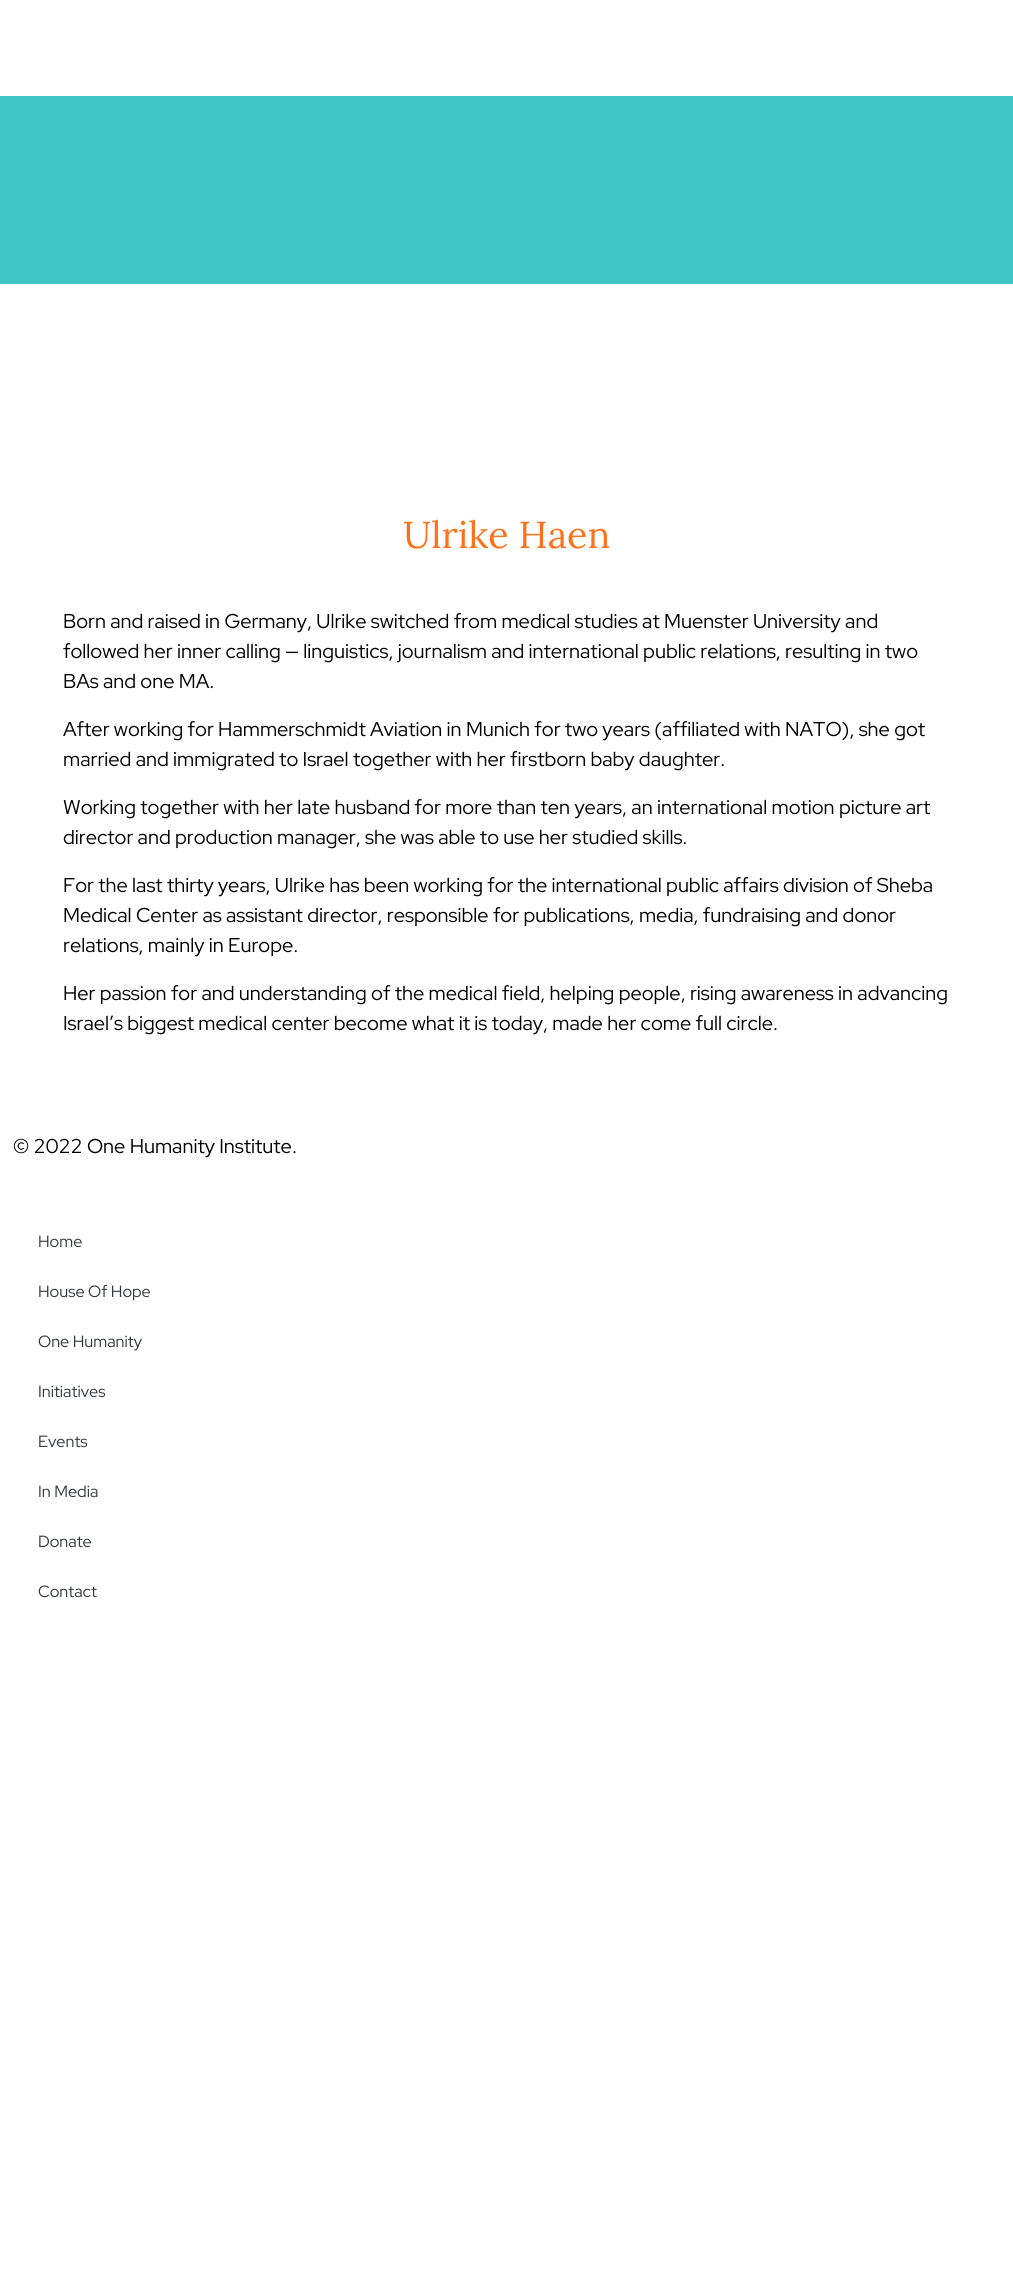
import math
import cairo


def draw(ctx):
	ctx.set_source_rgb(1, 1, 1)
	ctx.paint()
	ctx.set_source_rgb(0.235, 0.78, 0.773)
	ctx.rectangle(0, 96, 1013, 188)
	ctx.fill()
	ctx.select_font_face('Lora')
	ctx.set_font_size(37.5)
	ctx.set_source_rgb(1, 0.447, 0.11)
	ctx.move_to(403, 548)
	ctx.show_text('Ulrike Haen')
	ctx.select_font_face('Red Hat Display')
	ctx.set_font_size(20)
	ctx.set_source_rgb(0, 0, 0)
	for x, y, s in [
		(63, 628, 'Born and raised in Germany, Ulrike switched from medical studies at Muenster University and'),
		(63, 658, 'followed her inner calling — linguistics, journalism and international public relations, resulting in two'),
		(63, 688, 'BAs and one MA.'),
		(63, 736, 'After working for Hammerschmidt Aviation in Munich for two years (affiliated with NATO), she got'),
		(63, 766, 'married and immigrated to Israel together with her firstborn baby daughter.'),
		(63, 814, 'Working together with her late husband for more than ten years, an international motion picture art'),
		(63, 844, 'director and production manager, she was able to use her studied skills.'),
		(63, 892, 'For the last thirty years, Ulrike has been working for the international public affairs division of Sheba'),
		(63, 922, 'Medical Center as assistant director, responsible for publications, media, fundraising and donor'),
		(63, 952, 'relations, mainly in Europe.'),
		(63, 1000, 'Her passion for and understanding of the medical field, helping people, rising awareness in advancing'),
		(63, 1030, 'Israel’s biggest medical center become what it is today, made her come full circle.'),
		(13, 1153, '© 2022 One Humanity Institute.'),
	]:
		ctx.move_to(x, y)
		ctx.show_text(s)
	ctx.set_font_size(16.25)
	ctx.set_source_rgb(0.2, 0.216, 0.239)
	for x, y, s in [
		(38, 1247, 'Home'),
		(38, 1297, 'House Of Hope'),
		(38, 1347, 'One Humanity'),
		(38, 1397, 'Initiatives'),
		(38, 1447, 'Events'),
		(38, 1497, 'In Media'),
		(38, 1547, 'Donate'),
		(38, 1597, 'Contact'),
	]:
		ctx.move_to(x, y)
		ctx.show_text(s)


surface = cairo.ImageSurface(cairo.FORMAT_RGB24, 1013, 2293)
ctx = cairo.Context(surface)
options = cairo.FontOptions()
options.set_hint_metrics(cairo.HINT_METRICS_OFF)
options.set_hint_style(cairo.HINT_STYLE_NONE)
ctx.set_font_options(options)
ctx.set_miter_limit(4)
draw(ctx)
surface.write_to_png('image.png')
